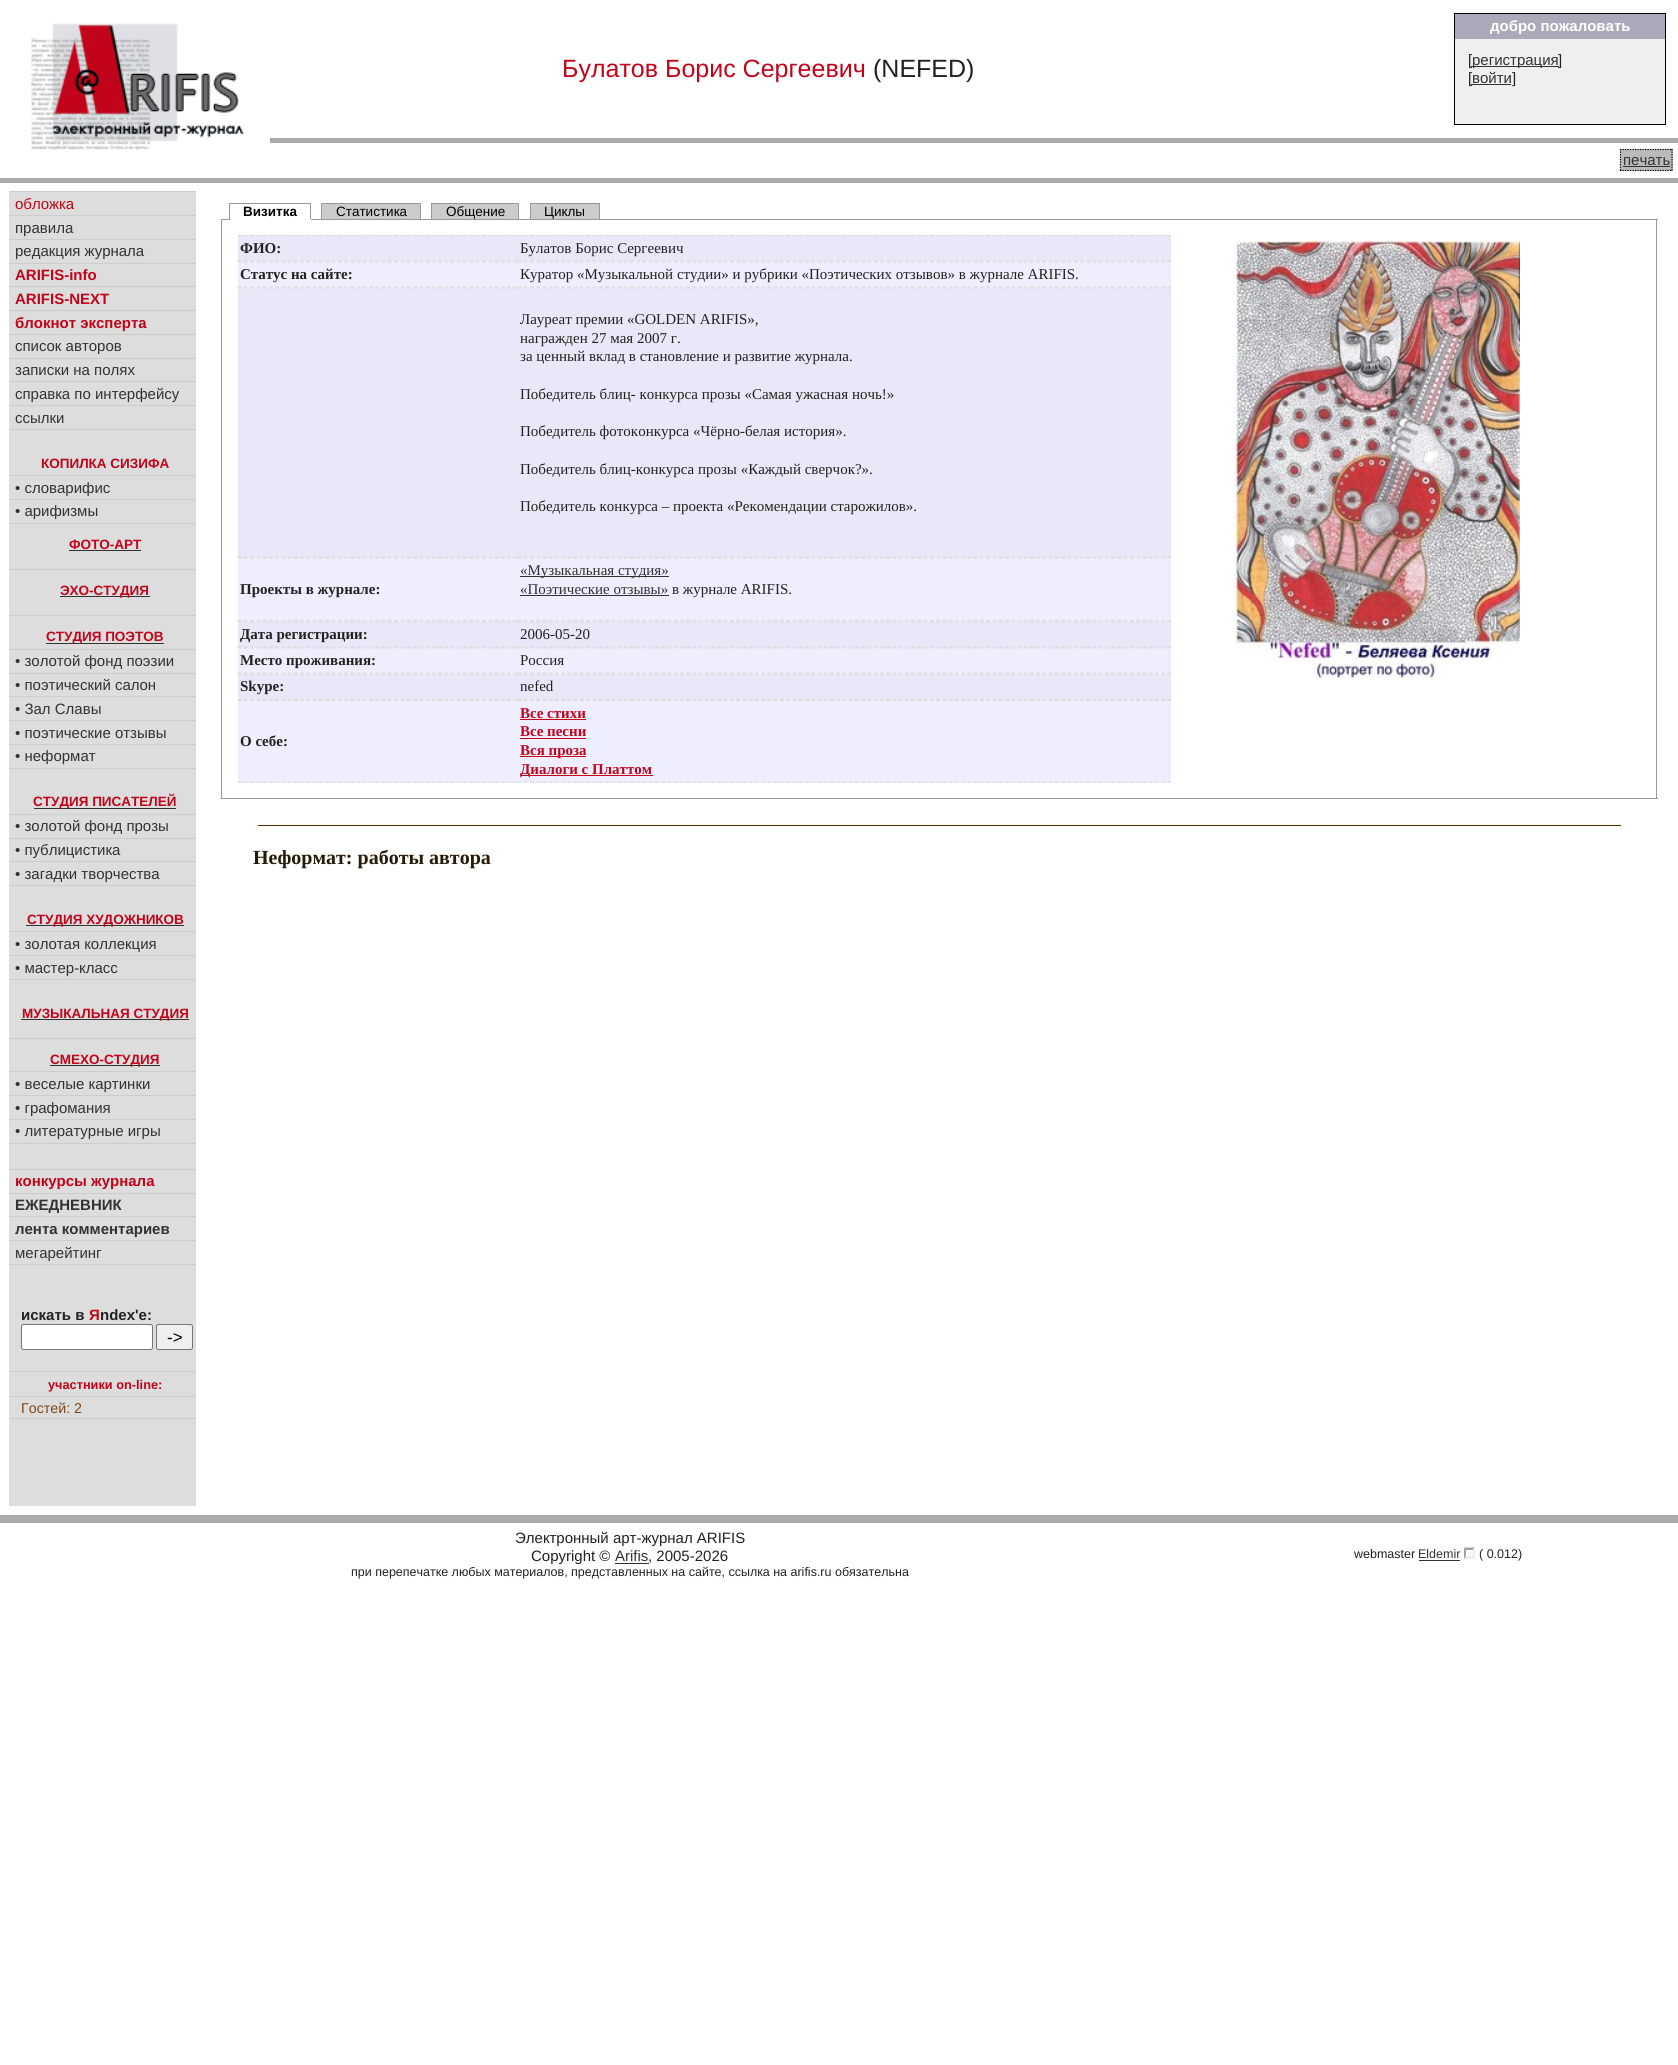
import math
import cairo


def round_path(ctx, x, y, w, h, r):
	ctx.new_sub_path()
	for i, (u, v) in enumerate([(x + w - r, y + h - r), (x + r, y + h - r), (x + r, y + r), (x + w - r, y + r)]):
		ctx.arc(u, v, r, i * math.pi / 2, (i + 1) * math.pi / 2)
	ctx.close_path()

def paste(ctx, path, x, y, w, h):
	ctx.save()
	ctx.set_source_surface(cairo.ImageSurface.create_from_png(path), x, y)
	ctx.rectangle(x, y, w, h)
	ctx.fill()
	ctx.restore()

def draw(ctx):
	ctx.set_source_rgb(1, 1, 1)
	ctx.paint()
	paste(ctx, 'media/1.png', 31, 23, 213, 127)
	ctx.select_font_face('Liberation Sans')
	ctx.set_font_size(25)
	ctx.set_source_rgb(0.761, 0.016, 0.102)
	ctx.move_to(562, 77)
	ctx.show_text('Булатов Борис Сергеевич')
	ctx.set_source_rgb(0.133, 0.133, 0.133)
	ctx.move_to(873, 77)
	ctx.show_text('(NEFED)')
	ctx.rectangle(1454.5, 13.5, 211, 111)
	ctx.set_source_rgb(0, 0, 0)
	ctx.set_line_width(1)
	ctx.stroke()
	ctx.set_source_rgb(0.667, 0.667, 0.733)
	ctx.rectangle(1455, 14, 210, 25)
	ctx.fill()
	ctx.select_font_face('Liberation Sans', cairo.FONT_SLANT_NORMAL, cairo.FONT_WEIGHT_BOLD)
	ctx.set_font_size(15)
	ctx.set_source_rgb(1, 1, 1)
	ctx.move_to(1490, 31)
	ctx.show_text('добро пожаловать')
	ctx.set_source_rgb(0.937, 0.937, 0.937)
	ctx.rectangle(1455, 39, 210, 85)
	ctx.fill()
	ctx.select_font_face('Liberation Sans')
	ctx.set_source_rgb(0.133, 0.133, 0.133)
	ctx.move_to(1468, 65)
	ctx.show_text('[')
	ctx.set_source_rgb(0.2, 0.2, 0.2)
	ctx.rectangle(1471, 66, 88, 1)
	ctx.fill()
	ctx.move_to(1472, 65)
	ctx.show_text('регистрация')
	ctx.set_source_rgb(0.133, 0.133, 0.133)
	ctx.move_to(1558, 65)
	ctx.show_text(']')
	ctx.move_to(1468, 83)
	ctx.show_text('[')
	ctx.set_source_rgb(0.2, 0.2, 0.2)
	ctx.move_to(1472, 83)
	ctx.show_text('войти')
	ctx.rectangle(1471, 84, 40, 1)
	ctx.fill()
	ctx.set_source_rgb(0.133, 0.133, 0.133)
	ctx.move_to(1512, 83)
	ctx.show_text(']')
	ctx.set_source_rgb(0.667, 0.667, 0.667)
	ctx.rectangle(270, 138, 1408, 5)
	ctx.fill()
	ctx.set_source_rgb(0.733, 0.733, 0.733)
	ctx.rectangle(1620, 149, 53, 22)
	ctx.fill()
	ctx.new_path()
	ctx.move_to(1620, 149.5)
	ctx.line_to(1672.5, 149.5)
	ctx.move_to(1672, 149)
	ctx.line_to(1672, 171)
	ctx.move_to(1620, 170.5)
	ctx.line_to(1672.5, 170.5)
	ctx.move_to(1620.5, 149)
	ctx.line_to(1620.5, 171)
	ctx.set_source_rgb(0, 0, 0)
	ctx.set_line_width(1.2)
	ctx.set_dash([1.25, 1.25])
	ctx.stroke()
	ctx.set_source_rgb(0.2, 0.2, 0.2)
	ctx.move_to(1623, 165)
	ctx.show_text('печать')
	ctx.rectangle(1623, 166, 47, 1)
	ctx.fill()
	ctx.set_source_rgb(0.667, 0.667, 0.667)
	ctx.rectangle(0, 178, 1678, 5)
	ctx.fill()
	ctx.set_source_rgb(0.867, 0.867, 0.867)
	ctx.rectangle(9, 192, 187, 1314)
	ctx.fill()
	ctx.set_source_rgb(0.8, 0.8, 0.8)
	ctx.rectangle(9, 429, 187, 1)
	ctx.rectangle(9, 191, 187, 1)
	ctx.fill()
	ctx.set_source_rgb(0.761, 0.016, 0.102)
	ctx.move_to(15, 209)
	ctx.show_text('обложка')
	ctx.set_source_rgb(0.8, 0.8, 0.8)
	ctx.rectangle(9, 215, 187, 1)
	ctx.fill()
	ctx.set_source_rgb(0.2, 0.2, 0.2)
	ctx.move_to(15, 233)
	ctx.show_text('правила')
	ctx.set_source_rgb(0.8, 0.8, 0.8)
	ctx.rectangle(9, 239, 187, 1)
	ctx.fill()
	ctx.set_source_rgb(0.2, 0.2, 0.2)
	ctx.move_to(15, 256)
	ctx.show_text('редакция журнала')
	ctx.set_source_rgb(0.8, 0.8, 0.8)
	ctx.rectangle(9, 263, 187, 1)
	ctx.fill()
	ctx.select_font_face('Liberation Sans', cairo.FONT_SLANT_NORMAL, cairo.FONT_WEIGHT_BOLD)
	ctx.set_source_rgb(0.761, 0.016, 0.102)
	ctx.move_to(15, 280)
	ctx.show_text('ARIFIS-info')
	ctx.set_source_rgb(0.8, 0.8, 0.8)
	ctx.rectangle(9, 286, 187, 1)
	ctx.fill()
	ctx.set_source_rgb(0.761, 0.016, 0.102)
	ctx.move_to(15, 304)
	ctx.show_text('ARIFIS-NEXT')
	ctx.set_source_rgb(0.8, 0.8, 0.8)
	ctx.rectangle(9, 310, 187, 1)
	ctx.fill()
	ctx.set_source_rgb(0.761, 0.016, 0.102)
	ctx.move_to(15, 328)
	ctx.show_text('блокнот эксперта')
	ctx.set_source_rgb(0.8, 0.8, 0.8)
	ctx.rectangle(9, 334, 187, 1)
	ctx.fill()
	ctx.select_font_face('Liberation Sans')
	ctx.set_source_rgb(0.2, 0.2, 0.2)
	ctx.move_to(15, 351)
	ctx.show_text('список авторов')
	ctx.set_source_rgb(0.8, 0.8, 0.8)
	ctx.rectangle(9, 358, 187, 1)
	ctx.fill()
	ctx.set_source_rgb(0.2, 0.2, 0.2)
	ctx.move_to(15, 375)
	ctx.show_text('записки на полях')
	ctx.set_source_rgb(0.8, 0.8, 0.8)
	ctx.rectangle(9, 381, 187, 1)
	ctx.fill()
	ctx.set_source_rgb(0.2, 0.2, 0.2)
	ctx.move_to(15, 399)
	ctx.show_text('справка по интерфейсу')
	ctx.set_source_rgb(0.8, 0.8, 0.8)
	ctx.rectangle(9, 405, 187, 1)
	ctx.fill()
	ctx.set_source_rgb(0.2, 0.2, 0.2)
	ctx.move_to(15, 423)
	ctx.show_text('ссылки')
	ctx.select_font_face('Liberation Sans', cairo.FONT_SLANT_NORMAL, cairo.FONT_WEIGHT_BOLD)
	ctx.set_font_size(13.5)
	ctx.set_source_rgb(0.761, 0.016, 0.102)
	ctx.move_to(41, 468)
	ctx.show_text('КОПИЛКА СИЗИФА')
	ctx.set_source_rgb(0.8, 0.8, 0.8)
	ctx.rectangle(9, 523, 187, 1)
	ctx.fill()
	ctx.rectangle(9, 475, 187, 1)
	ctx.fill()
	ctx.select_font_face('Liberation Sans')
	ctx.set_font_size(15)
	ctx.set_source_rgb(0.2, 0.2, 0.2)
	ctx.move_to(15, 493)
	ctx.show_text('• словарифис')
	ctx.set_source_rgb(0.8, 0.8, 0.8)
	ctx.rectangle(9, 499, 187, 1)
	ctx.fill()
	ctx.set_source_rgb(0.2, 0.2, 0.2)
	ctx.move_to(15, 516)
	ctx.show_text('• арифизмы')
	ctx.select_font_face('Liberation Sans', cairo.FONT_SLANT_NORMAL, cairo.FONT_WEIGHT_BOLD)
	ctx.set_font_size(13.5)
	ctx.set_source_rgb(0.761, 0.016, 0.102)
	ctx.move_to(69, 549)
	ctx.show_text('ФОТО-АРТ')
	ctx.set_source_rgb(0.2, 0.2, 0.2)
	ctx.rectangle(69, 550, 72, 1)
	ctx.fill()
	ctx.set_source_rgb(0.8, 0.8, 0.8)
	ctx.rectangle(9, 569, 187, 1)
	ctx.fill()
	ctx.set_source_rgb(0.2, 0.2, 0.2)
	ctx.rectangle(60, 596, 90, 1)
	ctx.fill()
	ctx.set_source_rgb(0.761, 0.016, 0.102)
	ctx.move_to(60, 595)
	ctx.show_text('ЭХО-СТУДИЯ')
	ctx.set_source_rgb(0.8, 0.8, 0.8)
	ctx.rectangle(9, 615, 187, 1)
	ctx.fill()
	ctx.set_source_rgb(0.2, 0.2, 0.2)
	ctx.rectangle(46, 643, 118, 1)
	ctx.fill()
	ctx.set_source_rgb(0.761, 0.016, 0.102)
	ctx.move_to(46, 641)
	ctx.show_text('СТУДИЯ ПОЭТОВ')
	ctx.set_source_rgb(0.8, 0.8, 0.8)
	ctx.rectangle(9, 768, 187, 1)
	ctx.fill()
	ctx.rectangle(9, 649, 187, 1)
	ctx.fill()
	ctx.select_font_face('Liberation Sans')
	ctx.set_font_size(15)
	ctx.set_source_rgb(0.2, 0.2, 0.2)
	ctx.move_to(15, 666)
	ctx.show_text('• золотой фонд поэзии')
	ctx.set_source_rgb(0.8, 0.8, 0.8)
	ctx.rectangle(9, 673, 187, 1)
	ctx.fill()
	ctx.set_source_rgb(0.2, 0.2, 0.2)
	ctx.move_to(15, 690)
	ctx.show_text('• поэтический салон')
	ctx.set_source_rgb(0.8, 0.8, 0.8)
	ctx.rectangle(9, 696, 187, 1)
	ctx.fill()
	ctx.set_source_rgb(0.2, 0.2, 0.2)
	ctx.move_to(15, 714)
	ctx.show_text('• Зал Славы')
	ctx.set_source_rgb(0.8, 0.8, 0.8)
	ctx.rectangle(9, 720, 187, 1)
	ctx.fill()
	ctx.set_source_rgb(0.2, 0.2, 0.2)
	ctx.move_to(15, 738)
	ctx.show_text('• поэтические отзывы')
	ctx.set_source_rgb(0.8, 0.8, 0.8)
	ctx.rectangle(9, 744, 187, 1)
	ctx.fill()
	ctx.set_source_rgb(0.2, 0.2, 0.2)
	ctx.move_to(15, 761)
	ctx.show_text('• неформат')
	ctx.rectangle(34, 808, 142, 1)
	ctx.fill()
	ctx.select_font_face('Liberation Sans', cairo.FONT_SLANT_NORMAL, cairo.FONT_WEIGHT_BOLD)
	ctx.set_font_size(13.5)
	ctx.set_source_rgb(0.761, 0.016, 0.102)
	ctx.move_to(33, 806)
	ctx.show_text('СТУДИЯ ПИСАТЕЛЕЙ')
	ctx.set_source_rgb(0.8, 0.8, 0.8)
	ctx.rectangle(9, 885, 187, 1)
	ctx.fill()
	ctx.rectangle(9, 814, 187, 1)
	ctx.fill()
	ctx.select_font_face('Liberation Sans')
	ctx.set_font_size(15)
	ctx.set_source_rgb(0.2, 0.2, 0.2)
	ctx.move_to(15, 831)
	ctx.show_text('• золотой фонд прозы')
	ctx.set_source_rgb(0.8, 0.8, 0.8)
	ctx.rectangle(9, 838, 187, 1)
	ctx.fill()
	ctx.set_source_rgb(0.2, 0.2, 0.2)
	ctx.move_to(15, 855)
	ctx.show_text('• публицистика')
	ctx.set_source_rgb(0.8, 0.8, 0.8)
	ctx.rectangle(9, 861, 187, 1)
	ctx.fill()
	ctx.set_source_rgb(0.2, 0.2, 0.2)
	ctx.move_to(15, 879)
	ctx.show_text('• загадки творчества')
	ctx.rectangle(26, 925, 158, 1)
	ctx.fill()
	ctx.select_font_face('Liberation Sans', cairo.FONT_SLANT_NORMAL, cairo.FONT_WEIGHT_BOLD)
	ctx.set_font_size(13.5)
	ctx.set_source_rgb(0.761, 0.016, 0.102)
	ctx.move_to(27, 924)
	ctx.show_text('СТУДИЯ ХУДОЖНИКОВ')
	ctx.set_source_rgb(0.8, 0.8, 0.8)
	ctx.rectangle(9, 979, 187, 1)
	ctx.fill()
	ctx.rectangle(9, 931, 187, 1)
	ctx.fill()
	ctx.select_font_face('Liberation Sans')
	ctx.set_font_size(15)
	ctx.set_source_rgb(0.2, 0.2, 0.2)
	ctx.move_to(15, 949)
	ctx.show_text('• золотая коллекция')
	ctx.set_source_rgb(0.8, 0.8, 0.8)
	ctx.rectangle(9, 955, 187, 1)
	ctx.fill()
	ctx.set_source_rgb(0.2, 0.2, 0.2)
	ctx.move_to(15, 973)
	ctx.show_text('• мастер-класс')
	ctx.rectangle(21, 1019, 168, 1)
	ctx.fill()
	ctx.select_font_face('Liberation Sans', cairo.FONT_SLANT_NORMAL, cairo.FONT_WEIGHT_BOLD)
	ctx.set_font_size(13.5)
	ctx.set_source_rgb(0.761, 0.016, 0.102)
	ctx.move_to(22, 1018)
	ctx.show_text('МУЗЫКАЛЬНАЯ СТУДИЯ')
	ctx.set_source_rgb(0.8, 0.8, 0.8)
	ctx.rectangle(9, 1038, 187, 1)
	ctx.fill()
	ctx.set_source_rgb(0.2, 0.2, 0.2)
	ctx.rectangle(50, 1065, 110, 1)
	ctx.fill()
	ctx.set_source_rgb(0.761, 0.016, 0.102)
	ctx.move_to(50, 1064)
	ctx.show_text('СМЕХО-СТУДИЯ')
	ctx.set_source_rgb(0.8, 0.8, 0.8)
	ctx.rectangle(9, 1143, 187, 1)
	ctx.fill()
	ctx.rectangle(9, 1071, 187, 1)
	ctx.fill()
	ctx.select_font_face('Liberation Sans')
	ctx.set_font_size(15)
	ctx.set_source_rgb(0.2, 0.2, 0.2)
	ctx.move_to(15, 1089)
	ctx.show_text('• веселые картинки')
	ctx.set_source_rgb(0.8, 0.8, 0.8)
	ctx.rectangle(9, 1095, 187, 1)
	ctx.fill()
	ctx.set_source_rgb(0.2, 0.2, 0.2)
	ctx.move_to(15, 1113)
	ctx.show_text('• графомания')
	ctx.set_source_rgb(0.8, 0.8, 0.8)
	ctx.rectangle(9, 1119, 187, 1)
	ctx.fill()
	ctx.set_source_rgb(0.2, 0.2, 0.2)
	ctx.move_to(15, 1136)
	ctx.show_text('• литературные игры')
	ctx.set_source_rgb(0.8, 0.8, 0.8)
	ctx.rectangle(9, 1264, 187, 1)
	ctx.fill()
	ctx.rectangle(9, 1169, 187, 1)
	ctx.fill()
	ctx.select_font_face('Liberation Sans', cairo.FONT_SLANT_NORMAL, cairo.FONT_WEIGHT_BOLD)
	ctx.set_source_rgb(0.761, 0.016, 0.102)
	ctx.move_to(15, 1186)
	ctx.show_text('конкурсы журнала')
	ctx.set_source_rgb(0.8, 0.8, 0.8)
	ctx.rectangle(9, 1193, 187, 1)
	ctx.fill()
	ctx.set_source_rgb(0.2, 0.2, 0.2)
	ctx.move_to(15, 1210)
	ctx.show_text('ЕЖЕДНЕВНИК')
	ctx.set_source_rgb(0.8, 0.8, 0.8)
	ctx.rectangle(9, 1216, 187, 1)
	ctx.fill()
	ctx.set_source_rgb(0.2, 0.2, 0.2)
	ctx.move_to(15, 1234)
	ctx.show_text('лента комментариев')
	ctx.set_source_rgb(0.8, 0.8, 0.8)
	ctx.rectangle(9, 1240, 187, 1)
	ctx.fill()
	ctx.select_font_face('Liberation Sans')
	ctx.set_source_rgb(0.2, 0.2, 0.2)
	ctx.move_to(15, 1258)
	ctx.show_text('мегарейтинг')
	ctx.set_source_rgb(0.8, 0.8, 0.8)
	ctx.rectangle(9, 1371, 187, 1)
	ctx.fill()
	ctx.select_font_face('Liberation Sans', cairo.FONT_SLANT_NORMAL, cairo.FONT_WEIGHT_BOLD)
	ctx.set_source_rgb(0.133, 0.133, 0.133)
	ctx.move_to(21, 1320)
	ctx.show_text('искать в')
	ctx.set_source_rgb(0.761, 0.016, 0.102)
	ctx.move_to(89, 1320)
	ctx.show_text('Я')
	ctx.set_source_rgb(0.133, 0.133, 0.133)
	ctx.move_to(100, 1320)
	ctx.show_text('ndex\'е:')
	ctx.set_source_rgb(1, 1, 1)
	round_path(ctx, 21.5, 1324.5, 131, 25, 2)
	ctx.fill_preserve()
	ctx.set_source_rgb(0.463, 0.463, 0.463)
	ctx.set_line_width(1)
	ctx.set_dash([])
	ctx.stroke()
	ctx.set_source_rgb(0.937, 0.937, 0.937)
	round_path(ctx, 156.5, 1324.5, 36, 25, 2)
	ctx.fill_preserve()
	ctx.set_source_rgb(0.463, 0.463, 0.463)
	ctx.stroke()
	ctx.select_font_face('Liberation Sans')
	ctx.set_font_size(17)
	ctx.set_source_rgb(0, 0, 0)
	ctx.move_to(167, 1343)
	ctx.show_text('->')
	ctx.set_source_rgb(0.8, 0.8, 0.8)
	ctx.rectangle(9, 1418, 187, 1)
	ctx.fill()
	ctx.select_font_face('Liberation Sans', cairo.FONT_SLANT_NORMAL, cairo.FONT_WEIGHT_BOLD)
	ctx.set_font_size(12.75)
	ctx.set_source_rgb(0.761, 0.016, 0.102)
	ctx.move_to(48, 1389)
	ctx.show_text('участники on-line:')
	ctx.set_source_rgb(0.8, 0.8, 0.8)
	ctx.rectangle(9, 1396, 187, 1)
	ctx.fill()
	ctx.select_font_face('Liberation Sans')
	ctx.set_font_size(14.25)
	ctx.set_source_rgb(0.478, 0.278, 0.118)
	ctx.move_to(21, 1413)
	ctx.show_text('Гостей: 2')
	ctx.set_source_rgb(0.6, 0.6, 0.6)
	ctx.rectangle(221, 219, 1437, 1)
	ctx.fill()
	ctx.select_font_face('Liberation Sans', cairo.FONT_SLANT_NORMAL, cairo.FONT_WEIGHT_BOLD)
	ctx.set_font_size(13.5)
	ctx.set_source_rgb(0, 0, 0)
	ctx.move_to(243, 216)
	ctx.show_text('Визитка')
	ctx.set_source_rgb(0.6, 0.6, 0.6)
	ctx.rectangle(229, 203, 82, 1)
	ctx.rectangle(310, 203, 1, 17)
	ctx.fill()
	ctx.set_source_rgb(1, 1, 1)
	ctx.rectangle(229, 219, 82, 1)
	ctx.fill()
	ctx.set_source_rgb(0.6, 0.6, 0.6)
	ctx.rectangle(229, 203, 1, 17)
	ctx.fill()
	ctx.set_source_rgb(0.8, 0.8, 0.8)
	ctx.rectangle(322, 204, 98, 15)
	ctx.fill()
	ctx.select_font_face('Liberation Sans')
	ctx.set_source_rgb(0, 0, 0)
	ctx.move_to(336, 216)
	ctx.show_text('Статистика')
	ctx.set_source_rgb(0.6, 0.6, 0.6)
	ctx.rectangle(321, 203, 100, 1)
	ctx.rectangle(420, 203, 1, 16)
	ctx.rectangle(321, 203, 1, 16)
	ctx.fill()
	ctx.set_source_rgb(0.8, 0.8, 0.8)
	ctx.rectangle(432, 204, 86, 15)
	ctx.fill()
	ctx.set_source_rgb(0, 0, 0)
	ctx.move_to(446, 216)
	ctx.show_text('Общение')
	ctx.set_source_rgb(0.6, 0.6, 0.6)
	ctx.rectangle(431, 203, 88, 1)
	ctx.rectangle(518, 203, 1, 16)
	ctx.rectangle(431, 203, 1, 16)
	ctx.fill()
	ctx.set_source_rgb(0.8, 0.8, 0.8)
	ctx.rectangle(531, 204, 68, 15)
	ctx.fill()
	ctx.set_source_rgb(0, 0, 0)
	ctx.move_to(544, 216)
	ctx.show_text('Циклы')
	ctx.set_source_rgb(0.6, 0.6, 0.6)
	ctx.rectangle(530, 203, 70, 1)
	ctx.rectangle(599, 203, 1, 16)
	ctx.rectangle(530, 203, 1, 16)
	ctx.rectangle(1656, 220, 1, 579)
	ctx.rectangle(221, 798, 1437, 1)
	ctx.rectangle(221, 220, 1, 579)
	ctx.fill()
	ctx.set_source_rgb(0.91, 0.91, 0.973)
	ctx.rectangle(238, 235, 933, 26)
	ctx.fill()
	ctx.new_path()
	ctx.move_to(237.5, 235.5)
	ctx.line_to(517.5, 235.5)
	ctx.set_source_rgb(0.867, 0.867, 0.867)
	ctx.set_line_width(1.2)
	ctx.set_dash([3.75, 2.52])
	ctx.stroke()
	ctx.new_path()
	ctx.move_to(237.5, 260.5)
	ctx.line_to(517.5, 260.5)
	ctx.stroke()
	ctx.select_font_face('Liberation Serif', cairo.FONT_SLANT_NORMAL, cairo.FONT_WEIGHT_BOLD)
	ctx.set_font_size(15)
	ctx.set_source_rgb(0.133, 0.133, 0.133)
	ctx.move_to(240, 253)
	ctx.show_text('ФИО:')
	ctx.new_path()
	ctx.move_to(517.5, 235.5)
	ctx.line_to(1171, 235.5)
	ctx.set_source_rgb(0.867, 0.867, 0.867)
	ctx.set_dash([3.75, 2.5])
	ctx.stroke()
	ctx.new_path()
	ctx.move_to(517.5, 260.5)
	ctx.line_to(1171, 260.5)
	ctx.stroke()
	ctx.select_font_face('Liberation Serif')
	ctx.set_source_rgb(0.133, 0.133, 0.133)
	ctx.move_to(520, 253)
	ctx.show_text('Булатов Борис Сергеевич')
	ctx.set_source_rgb(0.933, 0.933, 1)
	ctx.rectangle(238, 261, 933, 27)
	ctx.fill()
	ctx.new_path()
	ctx.move_to(237.5, 262)
	ctx.line_to(517.5, 262)
	ctx.set_source_rgb(0.867, 0.867, 0.867)
	ctx.set_dash([3.75, 2.52])
	ctx.stroke()
	ctx.new_path()
	ctx.move_to(237.5, 287)
	ctx.line_to(517.5, 287)
	ctx.stroke()
	ctx.select_font_face('Liberation Serif', cairo.FONT_SLANT_NORMAL, cairo.FONT_WEIGHT_BOLD)
	ctx.set_source_rgb(0.133, 0.133, 0.133)
	ctx.move_to(240, 279)
	ctx.show_text('Статус на сайте:')
	ctx.new_path()
	ctx.move_to(517.5, 262)
	ctx.line_to(1171, 262)
	ctx.set_source_rgb(0.867, 0.867, 0.867)
	ctx.set_dash([3.75, 2.5])
	ctx.stroke()
	ctx.new_path()
	ctx.move_to(517.5, 287)
	ctx.line_to(1171, 287)
	ctx.stroke()
	ctx.select_font_face('Liberation Serif')
	ctx.set_source_rgb(0.133, 0.133, 0.133)
	ctx.move_to(520, 279)
	ctx.show_text('Куратор «Музыкальной студии» и рубрики «Поэтических отзывов» в журнале ARIFIS.')
	ctx.set_source_rgb(0.91, 0.91, 0.973)
	ctx.rectangle(238, 288, 933, 270)
	ctx.fill()
	ctx.new_path()
	ctx.move_to(237.5, 288)
	ctx.line_to(517.5, 288)
	ctx.set_source_rgb(0.867, 0.867, 0.867)
	ctx.set_dash([3.75, 2.52])
	ctx.stroke()
	ctx.new_path()
	ctx.move_to(237.5, 557)
	ctx.line_to(517.5, 557)
	ctx.stroke()
	ctx.new_path()
	ctx.move_to(517.5, 288)
	ctx.line_to(1171, 288)
	ctx.set_dash([3.75, 2.5])
	ctx.stroke()
	ctx.new_path()
	ctx.move_to(517.5, 557)
	ctx.line_to(1171, 557)
	ctx.stroke()
	ctx.set_source_rgb(0.133, 0.133, 0.133)
	for x, y, s in [
		(520, 324, 'Лауреат премии «GOLDEN ARIFIS»,'),
		(520, 343, 'награжден 27 мая 2007 г.'),
		(520, 361, 'за ценный вклад в становление и развитие журнала.'),
		(520, 399, 'Победитель блиц- конкурса прозы «Самая ужасная ночь!»'),
		(520, 436, 'Победитель фотоконкурса «Чёрно-белая история».'),
		(520, 474, 'Победитель блиц-конкурса прозы «Каждый сверчок?».'),
		(520, 511, 'Победитель конкурса – проекта «Рекомендации старожилов».'),
	]:
		ctx.move_to(x, y)
		ctx.show_text(s)
	ctx.set_source_rgb(0.933, 0.933, 1)
	ctx.rectangle(238, 558, 933, 63)
	ctx.fill()
	ctx.new_path()
	ctx.move_to(237.5, 558)
	ctx.line_to(517.5, 558)
	ctx.set_source_rgb(0.867, 0.867, 0.867)
	ctx.set_dash([3.75, 2.52])
	ctx.stroke()
	ctx.new_path()
	ctx.move_to(237.5, 620.5)
	ctx.line_to(517.5, 620.5)
	ctx.stroke()
	ctx.select_font_face('Liberation Serif', cairo.FONT_SLANT_NORMAL, cairo.FONT_WEIGHT_BOLD)
	ctx.set_source_rgb(0.133, 0.133, 0.133)
	ctx.move_to(240, 594)
	ctx.show_text('Проекты в журнале:')
	ctx.new_path()
	ctx.move_to(517.5, 558)
	ctx.line_to(1171, 558)
	ctx.set_source_rgb(0.867, 0.867, 0.867)
	ctx.set_dash([3.75, 2.5])
	ctx.stroke()
	ctx.new_path()
	ctx.move_to(517.5, 620.5)
	ctx.line_to(1171, 620.5)
	ctx.stroke()
	ctx.set_source_rgb(0.2, 0.2, 0.2)
	ctx.rectangle(520, 576, 149, 1)
	ctx.fill()
	ctx.select_font_face('Liberation Serif')
	ctx.move_to(520, 575)
	ctx.show_text('«Музыкальная студия»')
	ctx.move_to(520, 594)
	ctx.show_text('«Поэтические отзывы»')
	ctx.rectangle(520, 595, 149, 1)
	ctx.fill()
	ctx.set_source_rgb(0.133, 0.133, 0.133)
	ctx.move_to(672, 594)
	ctx.show_text('в журнале ARIFIS.')
	ctx.set_source_rgb(0.91, 0.91, 0.973)
	ctx.rectangle(238, 621, 933, 27)
	ctx.fill()
	ctx.new_path()
	ctx.move_to(237.5, 622)
	ctx.line_to(517.5, 622)
	ctx.set_source_rgb(0.867, 0.867, 0.867)
	ctx.set_dash([3.75, 2.52])
	ctx.stroke()
	ctx.new_path()
	ctx.move_to(237.5, 647)
	ctx.line_to(517.5, 647)
	ctx.stroke()
	ctx.select_font_face('Liberation Serif', cairo.FONT_SLANT_NORMAL, cairo.FONT_WEIGHT_BOLD)
	ctx.set_source_rgb(0.133, 0.133, 0.133)
	ctx.move_to(240, 639)
	ctx.show_text('Дата регистрации:')
	ctx.new_path()
	ctx.move_to(517.5, 622)
	ctx.line_to(1171, 622)
	ctx.set_source_rgb(0.867, 0.867, 0.867)
	ctx.set_dash([3.75, 2.5])
	ctx.stroke()
	ctx.new_path()
	ctx.move_to(517.5, 647)
	ctx.line_to(1171, 647)
	ctx.stroke()
	ctx.select_font_face('Liberation Serif')
	ctx.set_source_rgb(0.133, 0.133, 0.133)
	ctx.move_to(520, 639)
	ctx.show_text('2006-05-20')
	ctx.set_source_rgb(0.933, 0.933, 1)
	ctx.rectangle(238, 648, 933, 26)
	ctx.fill()
	ctx.new_path()
	ctx.move_to(237.5, 648)
	ctx.line_to(517.5, 648)
	ctx.set_source_rgb(0.867, 0.867, 0.867)
	ctx.set_dash([3.75, 2.52])
	ctx.stroke()
	ctx.new_path()
	ctx.move_to(237.5, 673)
	ctx.line_to(517.5, 673)
	ctx.stroke()
	ctx.select_font_face('Liberation Serif', cairo.FONT_SLANT_NORMAL, cairo.FONT_WEIGHT_BOLD)
	ctx.set_source_rgb(0.133, 0.133, 0.133)
	ctx.move_to(240, 665)
	ctx.show_text('Место проживания:')
	ctx.new_path()
	ctx.move_to(517.5, 648)
	ctx.line_to(1171, 648)
	ctx.set_source_rgb(0.867, 0.867, 0.867)
	ctx.set_dash([3.75, 2.5])
	ctx.stroke()
	ctx.new_path()
	ctx.move_to(517.5, 673)
	ctx.line_to(1171, 673)
	ctx.stroke()
	ctx.select_font_face('Liberation Serif')
	ctx.set_source_rgb(0.133, 0.133, 0.133)
	ctx.move_to(520, 665)
	ctx.show_text('Россия')
	ctx.set_source_rgb(0.91, 0.91, 0.973)
	ctx.rectangle(238, 674, 933, 26)
	ctx.fill()
	ctx.new_path()
	ctx.move_to(237.5, 674.5)
	ctx.line_to(517.5, 674.5)
	ctx.set_source_rgb(0.867, 0.867, 0.867)
	ctx.set_dash([3.75, 2.52])
	ctx.stroke()
	ctx.new_path()
	ctx.move_to(237.5, 699.5)
	ctx.line_to(517.5, 699.5)
	ctx.stroke()
	ctx.select_font_face('Liberation Serif', cairo.FONT_SLANT_NORMAL, cairo.FONT_WEIGHT_BOLD)
	ctx.set_source_rgb(0.133, 0.133, 0.133)
	ctx.move_to(240, 691)
	ctx.show_text('Skype:')
	ctx.new_path()
	ctx.move_to(517.5, 674.5)
	ctx.line_to(1171, 674.5)
	ctx.set_source_rgb(0.867, 0.867, 0.867)
	ctx.set_dash([3.75, 2.5])
	ctx.stroke()
	ctx.new_path()
	ctx.move_to(517.5, 699.5)
	ctx.line_to(1171, 699.5)
	ctx.stroke()
	ctx.select_font_face('Liberation Serif')
	ctx.set_source_rgb(0.133, 0.133, 0.133)
	ctx.move_to(520, 691)
	ctx.show_text('nefed')
	ctx.set_source_rgb(0.933, 0.933, 1)
	ctx.rectangle(238, 700, 933, 83)
	ctx.fill()
	ctx.new_path()
	ctx.move_to(237.5, 700.5)
	ctx.line_to(517.5, 700.5)
	ctx.set_source_rgb(0.867, 0.867, 0.867)
	ctx.set_dash([3.75, 2.52])
	ctx.stroke()
	ctx.new_path()
	ctx.move_to(237.5, 782)
	ctx.line_to(517.5, 782)
	ctx.stroke()
	ctx.select_font_face('Liberation Serif', cairo.FONT_SLANT_NORMAL, cairo.FONT_WEIGHT_BOLD)
	ctx.set_source_rgb(0.133, 0.133, 0.133)
	ctx.move_to(240, 746)
	ctx.show_text('О себе:')
	ctx.new_path()
	ctx.move_to(517.5, 700.5)
	ctx.line_to(1171, 700.5)
	ctx.set_source_rgb(0.867, 0.867, 0.867)
	ctx.set_dash([3.75, 2.5])
	ctx.stroke()
	ctx.new_path()
	ctx.move_to(517.5, 782)
	ctx.line_to(1171, 782)
	ctx.stroke()
	ctx.set_source_rgb(0.761, 0.016, 0.102)
	ctx.move_to(520, 718)
	ctx.show_text('Все стихи')
	ctx.rectangle(520, 719, 66, 1)
	ctx.fill()
	ctx.move_to(520, 736)
	ctx.show_text('Все песни')
	ctx.rectangle(520, 738, 66, 1)
	ctx.fill()
	ctx.rectangle(520, 756, 66, 1)
	ctx.fill()
	ctx.move_to(520, 755)
	ctx.show_text('Вся проза')
	ctx.rectangle(520, 775, 133, 1)
	ctx.fill()
	ctx.move_to(520, 774)
	ctx.show_text('Диалоги с Платтом')
	paste(ctx, 'media/2.png', 1233, 241, 287, 438)
	ctx.set_source_rgb(0.322, 0.173, 0.012)
	ctx.rectangle(258, 825, 1363, 1)
	ctx.fill()
	ctx.set_font_size(20)
	ctx.set_source_rgb(0.161, 0.102, 0.035)
	ctx.move_to(253, 864)
	ctx.show_text('Неформат: работы автора')
	ctx.set_source_rgb(0.667, 0.667, 0.667)
	ctx.rectangle(0, 1515, 1678, 8)
	ctx.fill()
	ctx.select_font_face('Liberation Sans')
	ctx.set_font_size(15)
	ctx.set_source_rgb(0.133, 0.133, 0.133)
	ctx.move_to(515, 1543)
	ctx.show_text('Электронный арт-журнал ARIFIS')
	ctx.move_to(531, 1561)
	ctx.show_text('Copyright ©')
	ctx.set_source_rgb(0.2, 0.2, 0.2)
	ctx.move_to(615, 1561)
	ctx.show_text('Arifis')
	ctx.rectangle(615, 1563, 34, 1)
	ctx.fill()
	ctx.set_source_rgb(0.133, 0.133, 0.133)
	ctx.move_to(648, 1561)
	ctx.show_text(', 2005-2026')
	ctx.set_font_size(12.5)
	ctx.move_to(351, 1576)
	ctx.show_text('при перепечатке любых материалов, представленных на сайте, ссылка на arifis.ru обязательна')
	ctx.move_to(1354, 1558)
	ctx.show_text('webmaster')
	ctx.set_source_rgb(0.2, 0.2, 0.2)
	ctx.move_to(1418, 1558)
	ctx.show_text('Eldemir')
	ctx.rectangle(1419, 1560, 41, 1)
	ctx.fill()
	ctx.set_source_rgb(0.624, 0.624, 0.624)
	ctx.new_path()
	ctx.move_to(1464, 1547.5)
	ctx.line_to(1475, 1547.5)
	ctx.line_to(1472.5, 1550)
	ctx.line_to(1466, 1550)
	ctx.close_path()
	ctx.fill()
	ctx.set_source_rgb(0.933, 0.933, 0.933)
	ctx.new_path()
	ctx.move_to(1475, 1547.5)
	ctx.line_to(1475, 1559)
	ctx.line_to(1472.5, 1556)
	ctx.line_to(1472.5, 1550)
	ctx.close_path()
	ctx.fill()
	ctx.new_path()
	ctx.move_to(1475, 1559)
	ctx.line_to(1464, 1559)
	ctx.line_to(1466, 1556)
	ctx.line_to(1472.5, 1556)
	ctx.close_path()
	ctx.fill()
	ctx.set_source_rgb(0.624, 0.624, 0.624)
	ctx.new_path()
	ctx.move_to(1464, 1559)
	ctx.line_to(1464, 1547.5)
	ctx.line_to(1466, 1550)
	ctx.line_to(1466, 1556)
	ctx.close_path()
	ctx.fill()
	ctx.set_source_rgb(0.133, 0.133, 0.133)
	ctx.move_to(1479, 1558)
	ctx.show_text('( 0.012)')


surface = cairo.ImageSurface(cairo.FORMAT_RGB24, 1678, 2065)
ctx = cairo.Context(surface)
options = cairo.FontOptions()
options.set_hint_metrics(cairo.HINT_METRICS_OFF)
options.set_hint_style(cairo.HINT_STYLE_NONE)
ctx.set_font_options(options)
ctx.set_miter_limit(4)
draw(ctx)
surface.write_to_png('image.png')
